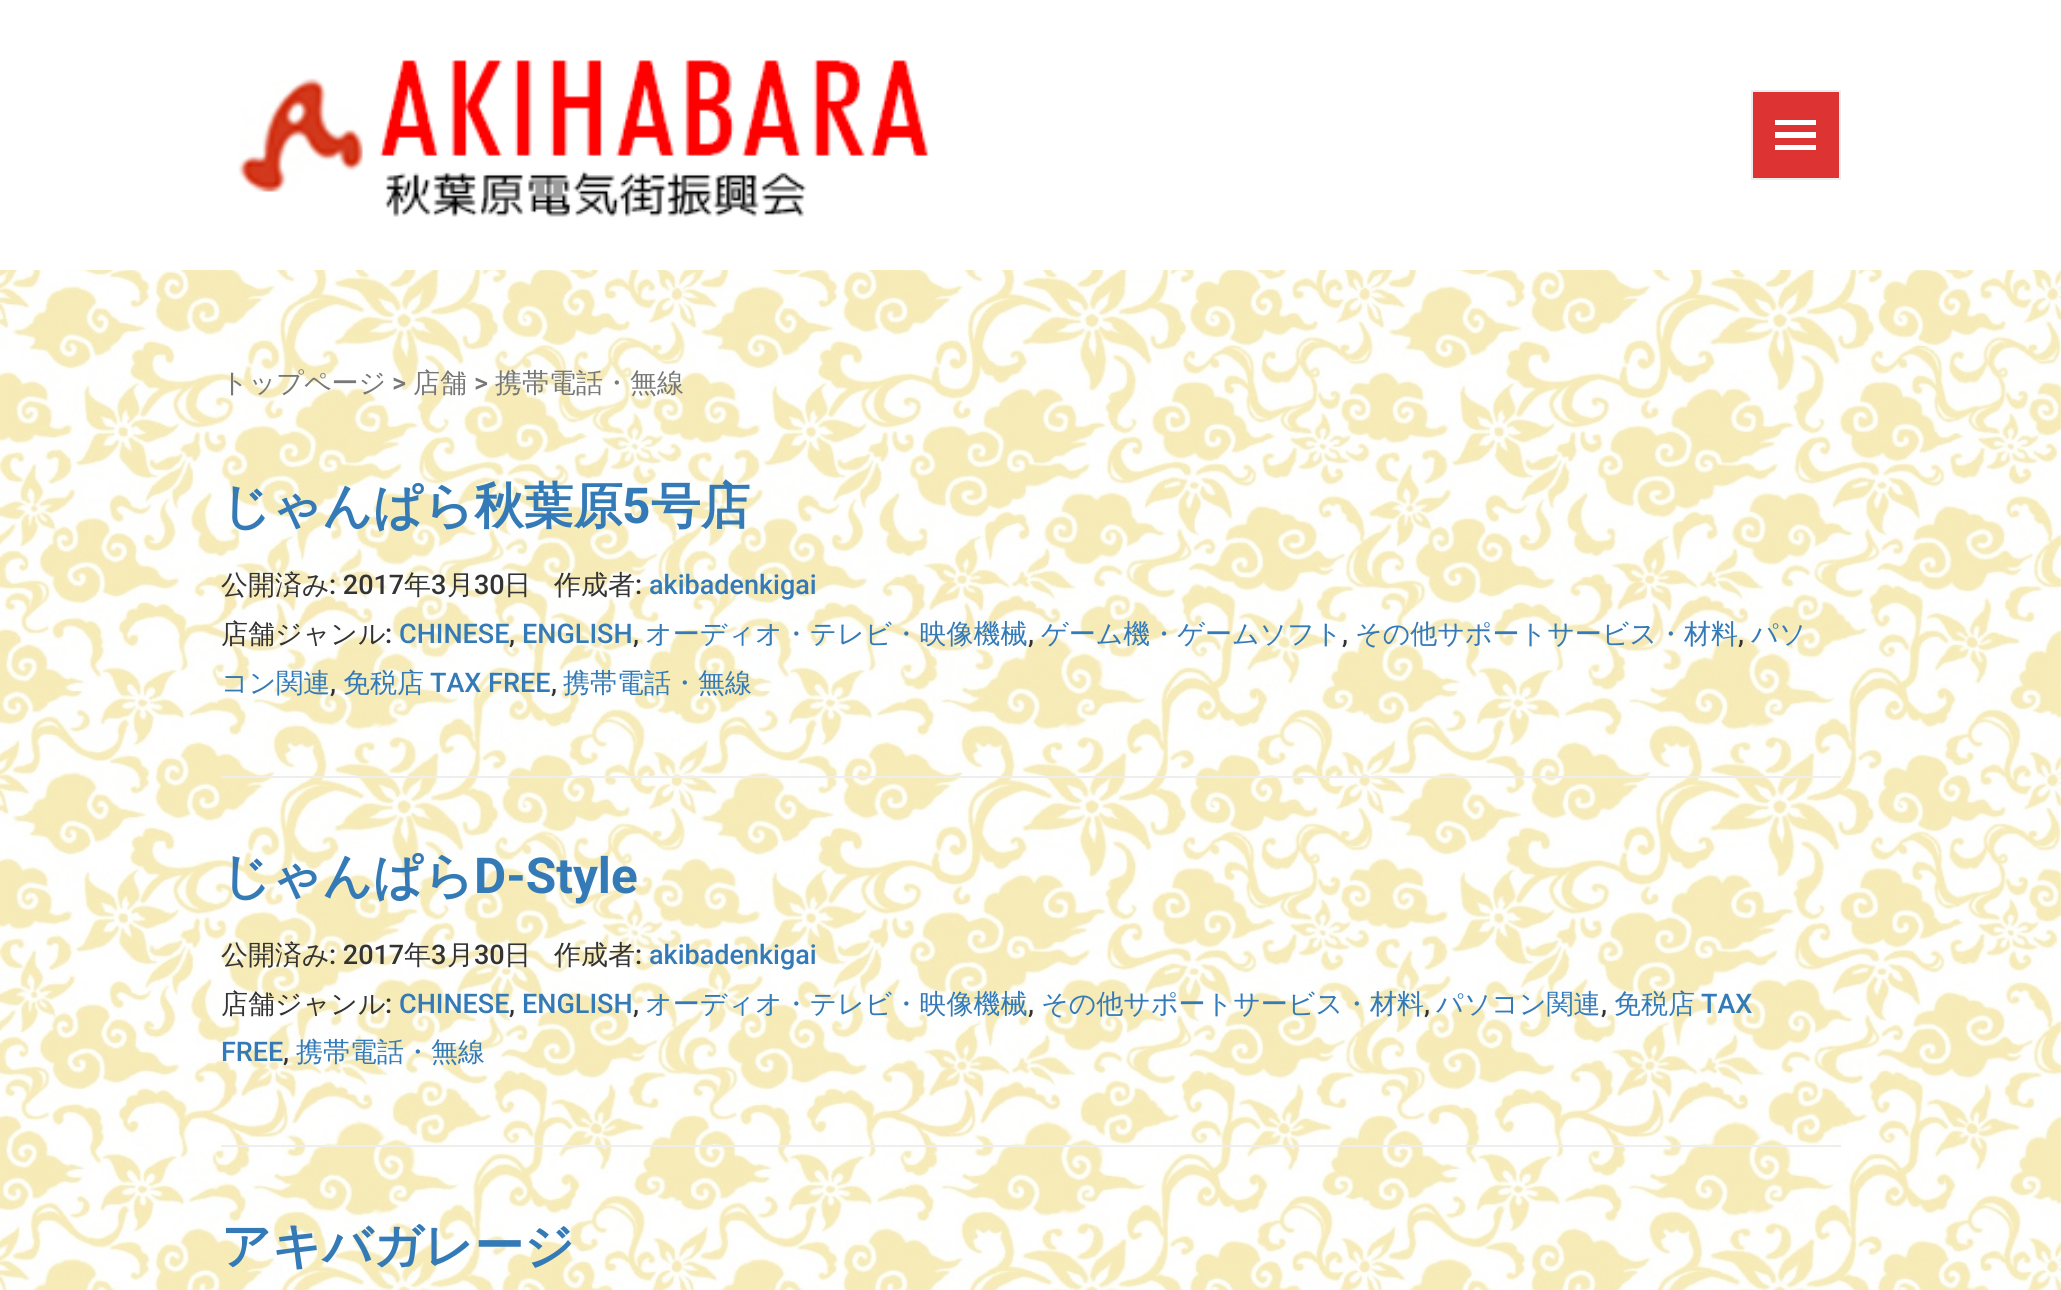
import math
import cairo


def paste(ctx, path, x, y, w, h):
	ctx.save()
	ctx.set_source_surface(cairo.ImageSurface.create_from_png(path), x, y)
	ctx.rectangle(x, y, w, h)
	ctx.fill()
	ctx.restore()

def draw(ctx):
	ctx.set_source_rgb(1, 1, 1)
	ctx.paint()
	paste(ctx, 'media/1.png', 0, 270, 2061, 1020)
	paste(ctx, 'media/2.png', 238, 60, 692, 157)
	ctx.set_source_rgb(0.867, 0.2, 0.2)
	ctx.rectangle(1752, 91, 88, 88)
	ctx.fill_preserve()
	ctx.set_source_rgb(0.933, 0.933, 0.933)
	ctx.stroke()
	ctx.set_source_rgb(1, 1, 1)
	ctx.new_path()
	ctx.move_to(1775, 150)
	ctx.line_to(1775, 145)
	ctx.line_to(1816, 145)
	ctx.line_to(1816, 150)
	ctx.close_path()
	ctx.move_to(1775, 120)
	ctx.line_to(1816, 120)
	ctx.line_to(1816, 125)
	ctx.line_to(1775, 125)
	ctx.close_path()
	ctx.move_to(1775, 138)
	ctx.line_to(1775, 132)
	ctx.line_to(1816, 132)
	ctx.line_to(1816, 138)
	ctx.close_path()
	ctx.fill()
	ctx.select_font_face('WenQuanYi Zen Hei Medium')
	ctx.set_font_size(27)
	ctx.set_source_rgb(0.467, 0.467, 0.467)
	ctx.move_to(221, 392)
	ctx.show_text('トップページ')
	ctx.select_font_face('Roboto Medium')
	ctx.move_to(392, 392)
	ctx.show_text('>')
	ctx.select_font_face('WenQuanYi Zen Hei Medium')
	ctx.move_to(413, 392)
	ctx.show_text('店舗')
	ctx.select_font_face('Roboto Medium')
	ctx.move_to(474, 392)
	ctx.show_text('>')
	ctx.select_font_face('WenQuanYi Zen Hei Medium')
	ctx.move_to(495, 392)
	ctx.show_text('携帯電話・無線')
	ctx.set_source_rgb(0.933, 0.933, 0.933)
	ctx.rectangle(221, 776, 1620, 2)
	ctx.fill()
	ctx.select_font_face('WenQuanYi Zen Hei', cairo.FONT_SLANT_NORMAL, cairo.FONT_WEIGHT_BOLD)
	ctx.set_font_size(49.5)
	ctx.set_source_rgb(0.2, 0.478, 0.718)
	ctx.move_to(221, 523)
	ctx.show_text('じゃんぱら秋葉原')
	ctx.select_font_face('Roboto', cairo.FONT_SLANT_NORMAL, cairo.FONT_WEIGHT_BOLD)
	ctx.move_to(622, 523)
	ctx.show_text('5')
	ctx.select_font_face('WenQuanYi Zen Hei', cairo.FONT_SLANT_NORMAL, cairo.FONT_WEIGHT_BOLD)
	ctx.move_to(651, 523)
	ctx.show_text('号店')
	ctx.select_font_face('WenQuanYi Zen Hei Medium')
	ctx.set_font_size(27)
	ctx.set_source_rgb(0.2, 0.2, 0.2)
	ctx.move_to(221, 594)
	ctx.show_text('公開済み')
	ctx.select_font_face('Roboto Medium')
	ctx.move_to(329, 594)
	ctx.show_text(': 2017')
	ctx.select_font_face('WenQuanYi Zen Hei Medium')
	ctx.move_to(404, 594)
	ctx.show_text('年')
	ctx.select_font_face('Roboto Medium')
	ctx.move_to(431, 594)
	ctx.show_text('3')
	ctx.select_font_face('WenQuanYi Zen Hei Medium')
	ctx.move_to(447, 594)
	ctx.show_text('月')
	ctx.select_font_face('Roboto Medium')
	ctx.move_to(474, 594)
	ctx.show_text('30')
	ctx.select_font_face('WenQuanYi Zen Hei Medium')
	ctx.move_to(504, 594)
	ctx.show_text('日')
	ctx.move_to(554, 594)
	ctx.show_text('作成者')
	ctx.select_font_face('Roboto Medium')
	ctx.move_to(635, 594)
	ctx.show_text(':')
	ctx.set_source_rgb(0.2, 0.478, 0.718)
	ctx.move_to(649, 594)
	ctx.show_text('akibadenkigai')
	ctx.select_font_face('WenQuanYi Zen Hei Medium')
	ctx.set_source_rgb(0.2, 0.2, 0.2)
	ctx.move_to(221, 643)
	ctx.show_text('店舗ジャンル')
	ctx.select_font_face('Roboto Medium')
	ctx.move_to(385, 643)
	ctx.show_text(':')
	ctx.set_source_rgb(0.2, 0.478, 0.718)
	ctx.move_to(399, 643)
	ctx.show_text('CHINESE')
	ctx.set_source_rgb(0.2, 0.2, 0.2)
	ctx.move_to(509, 643)
	ctx.show_text(',')
	ctx.set_source_rgb(0.2, 0.478, 0.718)
	ctx.move_to(522, 643)
	ctx.show_text('ENGLISH')
	ctx.set_source_rgb(0.2, 0.2, 0.2)
	ctx.move_to(633, 643)
	ctx.show_text(',')
	ctx.select_font_face('WenQuanYi Zen Hei Medium')
	ctx.set_source_rgb(0.2, 0.478, 0.718)
	ctx.move_to(645, 643)
	ctx.show_text('オーディオ・テレビ・映像機械')
	ctx.select_font_face('Roboto Medium')
	ctx.set_source_rgb(0.2, 0.2, 0.2)
	ctx.move_to(1028, 643)
	ctx.show_text(',')
	ctx.select_font_face('WenQuanYi Zen Hei Medium')
	ctx.set_source_rgb(0.2, 0.478, 0.718)
	ctx.move_to(1041, 643)
	ctx.show_text('ゲーム機・ゲームソフト')
	ctx.select_font_face('Roboto Medium')
	ctx.set_source_rgb(0.2, 0.2, 0.2)
	ctx.move_to(1342, 643)
	ctx.show_text(',')
	ctx.select_font_face('WenQuanYi Zen Hei Medium')
	ctx.set_source_rgb(0.2, 0.478, 0.718)
	ctx.move_to(1355, 643)
	ctx.show_text('その他サポートサービス・材料')
	ctx.select_font_face('Roboto Medium')
	ctx.set_source_rgb(0.2, 0.2, 0.2)
	ctx.move_to(1738, 643)
	ctx.show_text(',')
	ctx.select_font_face('WenQuanYi Zen Hei Medium')
	ctx.set_source_rgb(0.2, 0.478, 0.718)
	ctx.move_to(1751, 643)
	ctx.show_text('パソ')
	ctx.move_to(221, 692)
	ctx.show_text('コン関連')
	ctx.select_font_face('Roboto Medium')
	ctx.set_source_rgb(0.2, 0.2, 0.2)
	ctx.move_to(330, 692)
	ctx.show_text(',')
	ctx.select_font_face('WenQuanYi Zen Hei Medium')
	ctx.set_source_rgb(0.2, 0.478, 0.718)
	ctx.move_to(343, 692)
	ctx.show_text('免税店')
	ctx.select_font_face('Roboto Medium')
	ctx.move_to(430, 692)
	ctx.show_text('TAX FREE')
	ctx.set_source_rgb(0.2, 0.2, 0.2)
	ctx.move_to(551, 692)
	ctx.show_text(',')
	ctx.select_font_face('WenQuanYi Zen Hei Medium')
	ctx.set_source_rgb(0.2, 0.478, 0.718)
	ctx.move_to(563, 692)
	ctx.show_text('携帯電話・無線')
	ctx.set_source_rgb(0.933, 0.933, 0.933)
	ctx.rectangle(221, 1145, 1620, 2)
	ctx.fill()
	ctx.select_font_face('WenQuanYi Zen Hei', cairo.FONT_SLANT_NORMAL, cairo.FONT_WEIGHT_BOLD)
	ctx.set_font_size(49.5)
	ctx.set_source_rgb(0.2, 0.478, 0.718)
	ctx.move_to(221, 893)
	ctx.show_text('じゃんぱら')
	ctx.select_font_face('Roboto', cairo.FONT_SLANT_NORMAL, cairo.FONT_WEIGHT_BOLD)
	ctx.move_to(474, 893)
	ctx.show_text('D-Style')
	ctx.select_font_face('WenQuanYi Zen Hei Medium')
	ctx.set_font_size(27)
	ctx.set_source_rgb(0.2, 0.2, 0.2)
	ctx.move_to(221, 964)
	ctx.show_text('公開済み')
	ctx.select_font_face('Roboto Medium')
	ctx.move_to(329, 964)
	ctx.show_text(': 2017')
	ctx.select_font_face('WenQuanYi Zen Hei Medium')
	ctx.move_to(404, 964)
	ctx.show_text('年')
	ctx.select_font_face('Roboto Medium')
	ctx.move_to(431, 964)
	ctx.show_text('3')
	ctx.select_font_face('WenQuanYi Zen Hei Medium')
	ctx.move_to(447, 964)
	ctx.show_text('月')
	ctx.select_font_face('Roboto Medium')
	ctx.move_to(474, 964)
	ctx.show_text('30')
	ctx.select_font_face('WenQuanYi Zen Hei Medium')
	ctx.move_to(504, 964)
	ctx.show_text('日')
	ctx.move_to(554, 964)
	ctx.show_text('作成者')
	ctx.select_font_face('Roboto Medium')
	ctx.move_to(635, 964)
	ctx.show_text(':')
	ctx.set_source_rgb(0.2, 0.478, 0.718)
	ctx.move_to(649, 964)
	ctx.show_text('akibadenkigai')
	ctx.select_font_face('WenQuanYi Zen Hei Medium')
	ctx.set_source_rgb(0.2, 0.2, 0.2)
	ctx.move_to(221, 1013)
	ctx.show_text('店舗ジャンル')
	ctx.select_font_face('Roboto Medium')
	ctx.move_to(385, 1013)
	ctx.show_text(':')
	ctx.set_source_rgb(0.2, 0.478, 0.718)
	ctx.move_to(399, 1013)
	ctx.show_text('CHINESE')
	ctx.set_source_rgb(0.2, 0.2, 0.2)
	ctx.move_to(509, 1013)
	ctx.show_text(',')
	ctx.set_source_rgb(0.2, 0.478, 0.718)
	ctx.move_to(522, 1013)
	ctx.show_text('ENGLISH')
	ctx.set_source_rgb(0.2, 0.2, 0.2)
	ctx.move_to(633, 1013)
	ctx.show_text(',')
	ctx.select_font_face('WenQuanYi Zen Hei Medium')
	ctx.set_source_rgb(0.2, 0.478, 0.718)
	ctx.move_to(645, 1013)
	ctx.show_text('オーディオ・テレビ・映像機械')
	ctx.select_font_face('Roboto Medium')
	ctx.set_source_rgb(0.2, 0.2, 0.2)
	ctx.move_to(1028, 1013)
	ctx.show_text(',')
	ctx.select_font_face('WenQuanYi Zen Hei Medium')
	ctx.set_source_rgb(0.2, 0.478, 0.718)
	ctx.move_to(1041, 1013)
	ctx.show_text('その他サポートサービス・材料')
	ctx.select_font_face('Roboto Medium')
	ctx.set_source_rgb(0.2, 0.2, 0.2)
	ctx.move_to(1424, 1013)
	ctx.show_text(',')
	ctx.select_font_face('WenQuanYi Zen Hei Medium')
	ctx.set_source_rgb(0.2, 0.478, 0.718)
	ctx.move_to(1436, 1013)
	ctx.show_text('パソコン関連')
	ctx.select_font_face('Roboto Medium')
	ctx.set_source_rgb(0.2, 0.2, 0.2)
	ctx.move_to(1601, 1013)
	ctx.show_text(',')
	ctx.select_font_face('WenQuanYi Zen Hei Medium')
	ctx.set_source_rgb(0.2, 0.478, 0.718)
	ctx.move_to(1614, 1013)
	ctx.show_text('免税店')
	ctx.select_font_face('Roboto Medium')
	ctx.move_to(1701, 1013)
	ctx.show_text('TAX')
	ctx.move_to(221, 1061)
	ctx.show_text('FREE')
	ctx.set_source_rgb(0.2, 0.2, 0.2)
	ctx.move_to(283, 1061)
	ctx.show_text(',')
	ctx.select_font_face('WenQuanYi Zen Hei Medium')
	ctx.set_source_rgb(0.2, 0.478, 0.718)
	ctx.move_to(296, 1061)
	ctx.show_text('携帯電話・無線')
	ctx.select_font_face('WenQuanYi Zen Hei', cairo.FONT_SLANT_NORMAL, cairo.FONT_WEIGHT_BOLD)
	ctx.set_font_size(49.5)
	ctx.move_to(221, 1263)
	ctx.show_text('アキバガレージ')


surface = cairo.ImageSurface(cairo.FORMAT_RGB24, 2061, 1290)
ctx = cairo.Context(surface)
options = cairo.FontOptions()
options.set_hint_metrics(cairo.HINT_METRICS_OFF)
options.set_hint_style(cairo.HINT_STYLE_NONE)
ctx.set_font_options(options)
ctx.set_miter_limit(4)
draw(ctx)
surface.write_to_png('image.png')
